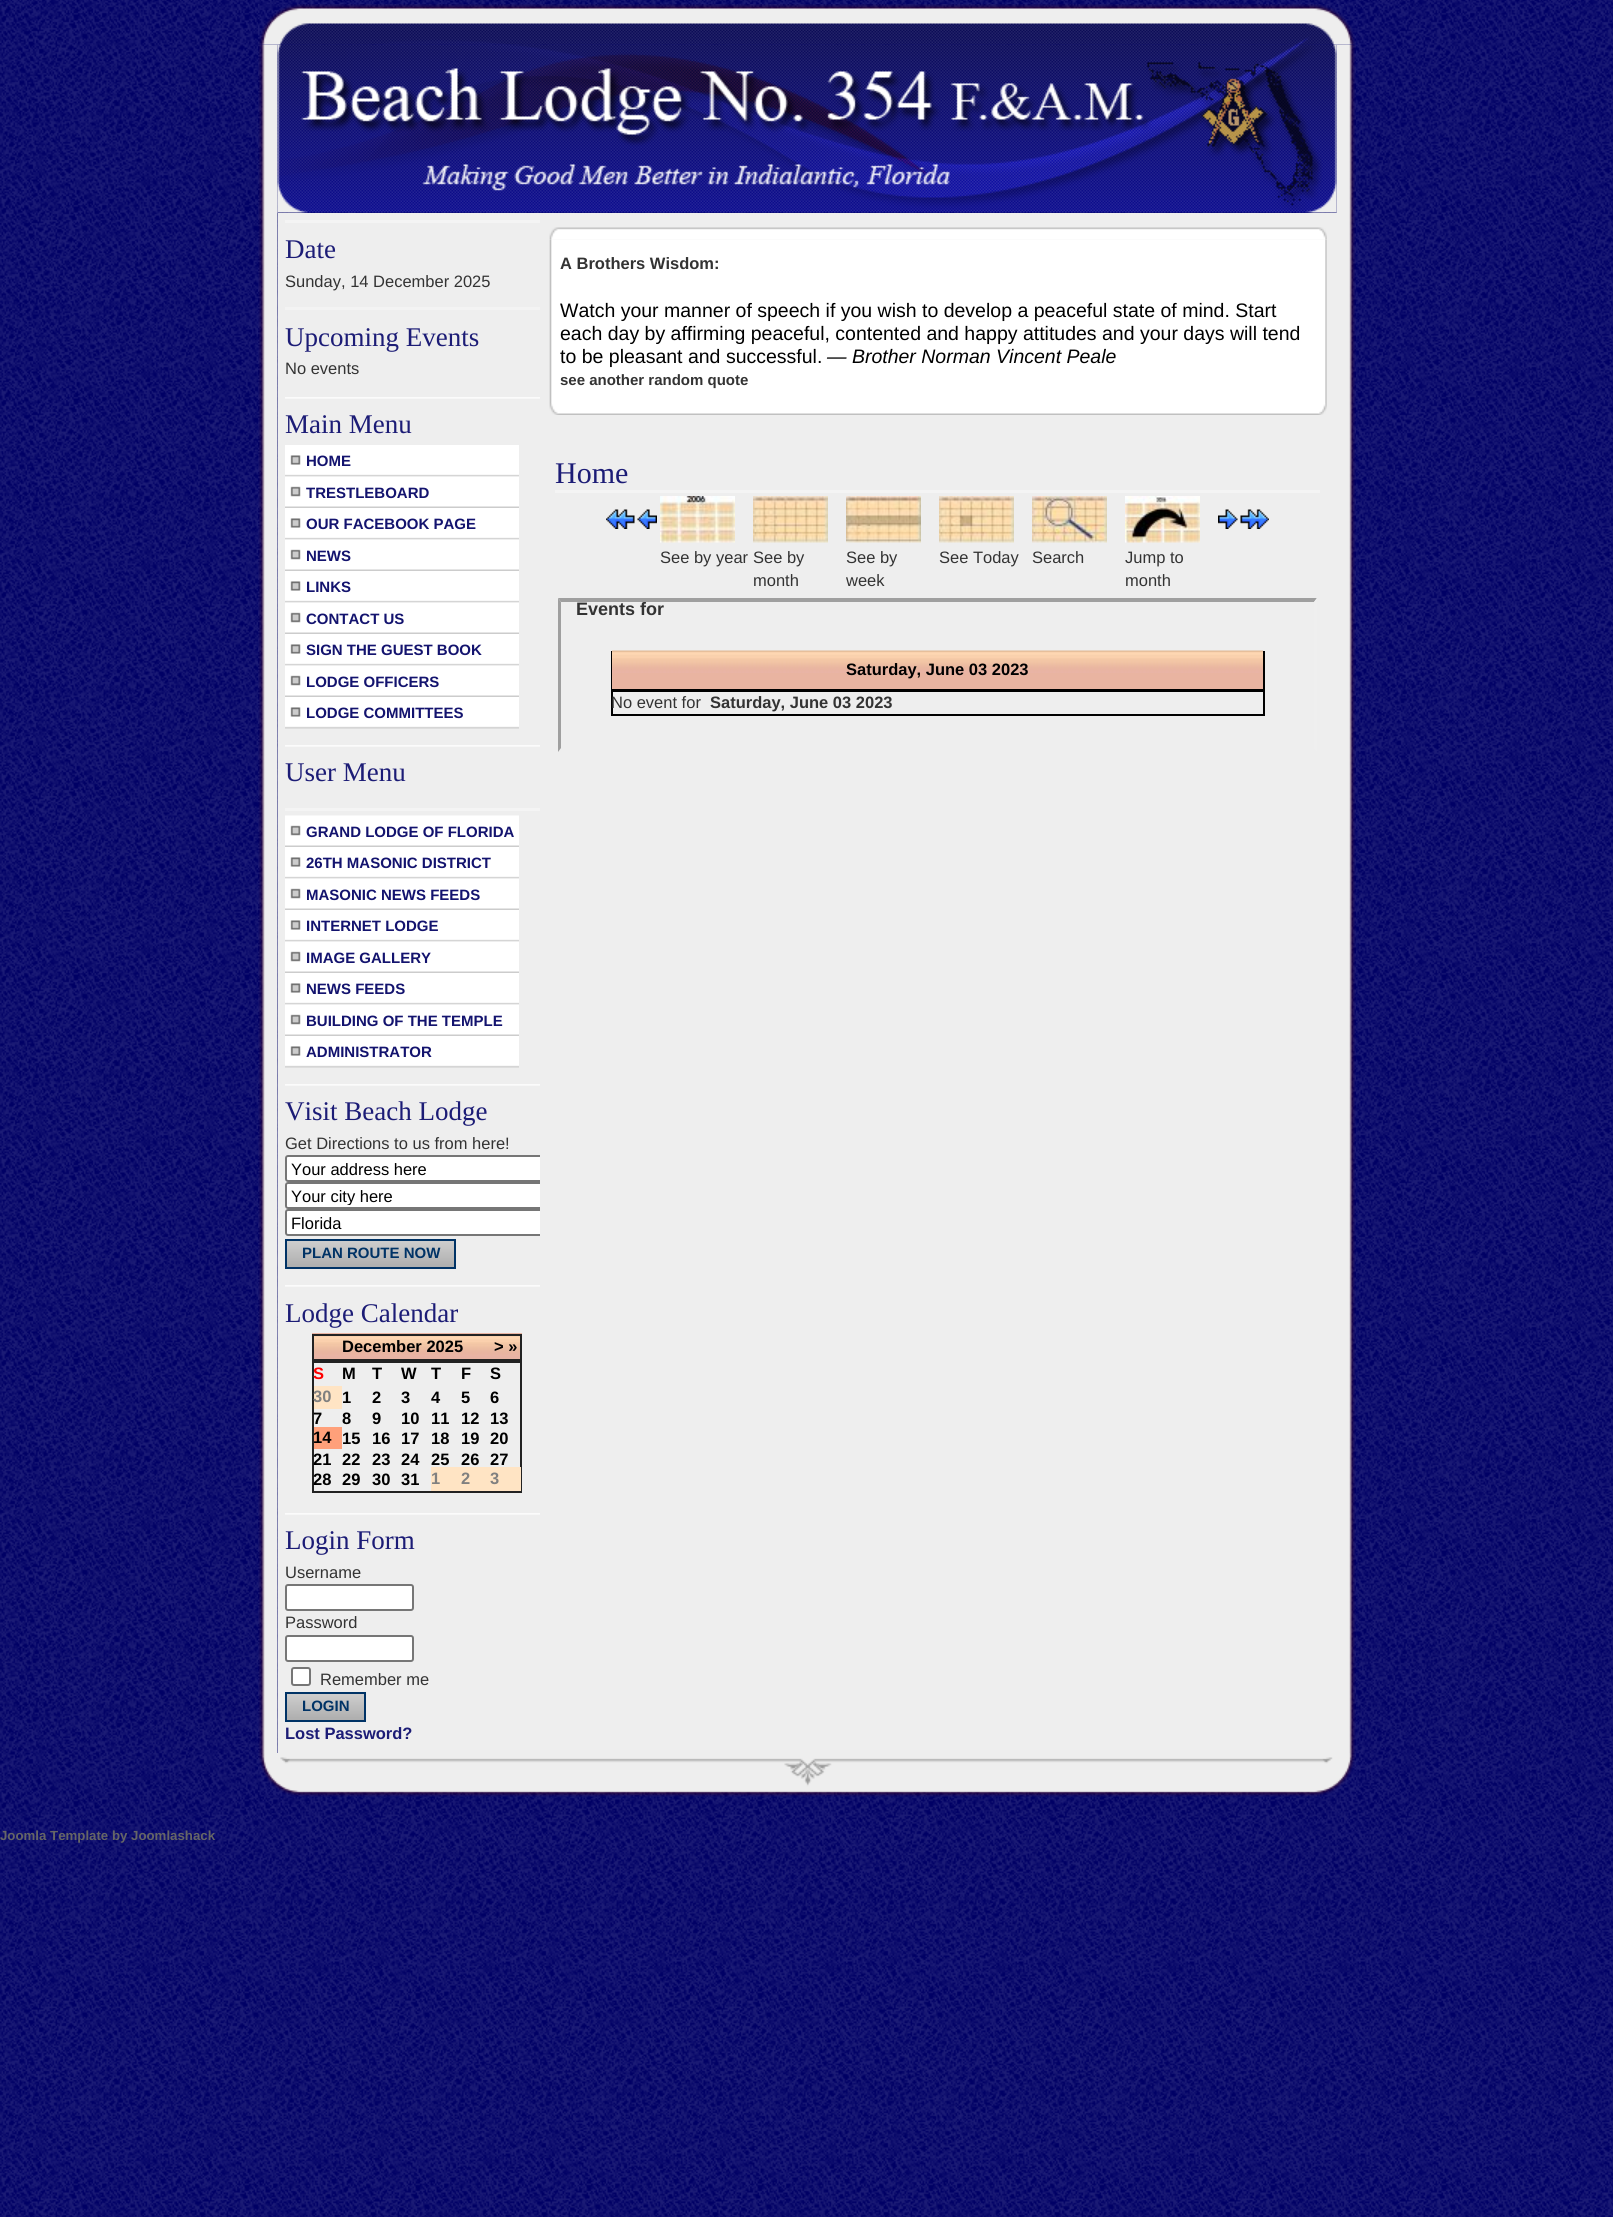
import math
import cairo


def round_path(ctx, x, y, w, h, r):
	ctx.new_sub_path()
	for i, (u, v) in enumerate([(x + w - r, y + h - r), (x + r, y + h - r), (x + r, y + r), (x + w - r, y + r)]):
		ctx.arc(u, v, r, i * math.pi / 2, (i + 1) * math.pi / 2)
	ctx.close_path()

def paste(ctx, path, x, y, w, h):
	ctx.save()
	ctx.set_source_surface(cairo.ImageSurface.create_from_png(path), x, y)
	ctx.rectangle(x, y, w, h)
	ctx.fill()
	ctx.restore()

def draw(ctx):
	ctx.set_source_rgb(1, 1, 1)
	ctx.paint()
	paste(ctx, 'media/1.png', 0, 0, 1613, 2217)
	paste(ctx, 'media/2.png', 258, 4, 1098, 41)
	paste(ctx, 'media/3.png', 258, 44, 20, 1709)
	paste(ctx, 'media/26.png', 1336, 44, 20, 1709)
	paste(ctx, 'media/4.png', 277, 44, 1060, 169)
	ctx.set_source_rgb(0.933, 0.933, 0.933)
	ctx.rectangle(278, 213, 1059, 1540)
	ctx.fill()
	ctx.set_source_rgb(0.957, 0.957, 0.957)
	ctx.rectangle(285, 220, 255, 3)
	ctx.fill()
	ctx.select_font_face('Liberation Serif')
	ctx.set_font_size(27)
	ctx.set_source_rgb(0.11, 0.11, 0.463)
	ctx.move_to(285, 258)
	ctx.show_text('Date')
	ctx.select_font_face('Liberation Sans')
	ctx.set_font_size(16.5)
	ctx.set_source_rgb(0.2, 0.2, 0.2)
	ctx.move_to(285, 287)
	ctx.show_text('Sunday, 14 December 2025')
	ctx.set_source_rgb(0.953, 0.953, 0.953)
	ctx.rectangle(285, 307, 255, 3)
	ctx.fill()
	ctx.select_font_face('Liberation Serif')
	ctx.set_font_size(27)
	ctx.set_source_rgb(0.11, 0.11, 0.463)
	ctx.move_to(285, 346)
	ctx.show_text('Upcoming Events')
	ctx.select_font_face('Liberation Sans')
	ctx.set_font_size(16.5)
	ctx.set_source_rgb(0.2, 0.2, 0.2)
	ctx.move_to(285, 374)
	ctx.show_text('No events')
	paste(ctx, 'media/5.png', 285, 397, 255, 2)
	ctx.select_font_face('Liberation Serif')
	ctx.set_font_size(27)
	ctx.set_source_rgb(0.11, 0.11, 0.463)
	ctx.move_to(285, 433)
	ctx.show_text('Main Menu')
	paste(ctx, 'media/6.png', 285, 445, 234, 32)
	ctx.select_font_face('Liberation Sans', cairo.FONT_SLANT_NORMAL, cairo.FONT_WEIGHT_BOLD)
	ctx.set_font_size(15)
	ctx.set_source_rgb(0.075, 0.075, 0.431)
	ctx.move_to(306, 466)
	ctx.show_text('HOME')
	paste(ctx, 'media/7.png', 285, 476, 234, 32)
	ctx.move_to(306, 498)
	ctx.show_text('TRESTLEBOARD')
	paste(ctx, 'media/6.png', 285, 508, 234, 32)
	ctx.move_to(306, 529)
	ctx.show_text('OUR FACEBOOK PAGE')
	paste(ctx, 'media/7.png', 285, 539, 234, 32)
	ctx.move_to(306, 561)
	ctx.show_text('NEWS')
	paste(ctx, 'media/6.png', 285, 571, 234, 32)
	ctx.move_to(306, 592)
	ctx.show_text('LINKS')
	paste(ctx, 'media/7.png', 285, 602, 234, 32)
	ctx.move_to(306, 624)
	ctx.show_text('CONTACT US')
	paste(ctx, 'media/6.png', 285, 634, 234, 32)
	ctx.move_to(306, 655)
	ctx.show_text('SIGN THE GUEST BOOK')
	paste(ctx, 'media/7.png', 285, 665, 234, 32)
	ctx.move_to(306, 687)
	ctx.show_text('LODGE OFFICERS')
	paste(ctx, 'media/6.png', 285, 697, 234, 32)
	ctx.move_to(306, 718)
	ctx.show_text('LODGE COMMITTEES')
	paste(ctx, 'media/5.png', 285, 745, 255, 2)
	ctx.select_font_face('Liberation Serif')
	ctx.set_font_size(27)
	ctx.set_source_rgb(0.11, 0.11, 0.463)
	ctx.move_to(285, 781)
	ctx.show_text('User Menu')
	ctx.set_source_rgb(0.957, 0.957, 0.957)
	ctx.rectangle(285, 808, 255, 3)
	ctx.fill()
	paste(ctx, 'media/8.png', 285, 815, 234, 32)
	ctx.select_font_face('Liberation Sans', cairo.FONT_SLANT_NORMAL, cairo.FONT_WEIGHT_BOLD)
	ctx.set_font_size(15)
	ctx.set_source_rgb(0.075, 0.075, 0.431)
	ctx.move_to(306, 837)
	ctx.show_text('GRAND LODGE OF FLORIDA')
	paste(ctx, 'media/6.png', 285, 847, 234, 32)
	ctx.move_to(306, 868)
	ctx.show_text('26TH MASONIC DISTRICT')
	paste(ctx, 'media/7.png', 285, 878, 234, 32)
	ctx.move_to(306, 900)
	ctx.show_text('MASONIC NEWS FEEDS')
	paste(ctx, 'media/6.png', 285, 910, 234, 32)
	ctx.move_to(306, 931)
	ctx.show_text('INTERNET LODGE')
	paste(ctx, 'media/7.png', 285, 941, 234, 32)
	ctx.move_to(306, 963)
	ctx.show_text('IMAGE GALLERY')
	paste(ctx, 'media/6.png', 285, 973, 234, 32)
	ctx.move_to(306, 994)
	ctx.show_text('NEWS FEEDS')
	paste(ctx, 'media/7.png', 285, 1004, 234, 32)
	ctx.move_to(306, 1026)
	ctx.show_text('BUILDING OF THE TEMPLE')
	paste(ctx, 'media/6.png', 285, 1036, 234, 32)
	ctx.move_to(306, 1057)
	ctx.show_text('ADMINISTRATOR')
	paste(ctx, 'media/5.png', 285, 1084, 255, 2)
	ctx.select_font_face('Liberation Serif')
	ctx.set_font_size(27)
	ctx.set_source_rgb(0.11, 0.11, 0.463)
	ctx.move_to(285, 1120)
	ctx.show_text('Visit Beach Lodge')
	ctx.select_font_face('Liberation Sans')
	ctx.set_font_size(16.5)
	ctx.set_source_rgb(0.2, 0.2, 0.2)
	ctx.move_to(285, 1149)
	ctx.show_text('Get Directions to us from here!')
	ctx.set_source_rgb(1, 1, 1)
	ctx.new_path()
	ctx.move_to(288, 1155)
	ctx.line_to(540, 1155)
	ctx.line_to(540, 1182)
	ctx.line_to(288, 1182)
	ctx.curve_to(286.5, 1182, 285, 1180.5, 285, 1179)
	ctx.line_to(285, 1158)
	ctx.curve_to(285, 1156.5, 286.5, 1155, 288, 1155)
	ctx.close_path()
	ctx.fill()
	ctx.save()
	ctx.rectangle(278, 213, 262, 1541)
	ctx.clip()
	round_path(ctx, 286, 1156, 271, 25, 2)
	ctx.set_source_rgb(0.463, 0.463, 0.463)
	ctx.stroke()
	ctx.restore()
	ctx.set_source_rgb(0, 0, 0)
	ctx.move_to(291, 1175)
	ctx.show_text('Your address here')
	ctx.set_source_rgb(1, 1, 1)
	ctx.new_path()
	ctx.move_to(288, 1182)
	ctx.line_to(540, 1182)
	ctx.line_to(540, 1209)
	ctx.line_to(288, 1209)
	ctx.curve_to(286.5, 1209, 285, 1207.5, 285, 1206)
	ctx.line_to(285, 1185)
	ctx.curve_to(285, 1183.5, 286.5, 1182, 288, 1182)
	ctx.close_path()
	ctx.fill()
	ctx.save()
	ctx.rectangle(278, 213, 262, 1541)
	ctx.clip()
	round_path(ctx, 286, 1183, 271, 25, 2)
	ctx.set_source_rgb(0.463, 0.463, 0.463)
	ctx.stroke()
	ctx.restore()
	ctx.save()
	ctx.rectangle(291, 1187, 249, 18)
	ctx.clip()
	ctx.set_source_rgb(0, 0, 0)
	ctx.move_to(291, 1202)
	ctx.show_text('Your city here')
	ctx.restore()
	ctx.new_path()
	ctx.move_to(288, 1209)
	ctx.line_to(540, 1209)
	ctx.line_to(540, 1236)
	ctx.line_to(288, 1236)
	ctx.curve_to(286.5, 1236, 285, 1234.5, 285, 1233)
	ctx.line_to(285, 1212)
	ctx.curve_to(285, 1210.5, 286.5, 1209, 288, 1209)
	ctx.close_path()
	ctx.fill()
	ctx.save()
	ctx.rectangle(278, 213, 262, 1541)
	ctx.clip()
	round_path(ctx, 286, 1210, 271, 25, 2)
	ctx.set_source_rgb(0.463, 0.463, 0.463)
	ctx.stroke()
	ctx.restore()
	ctx.set_source_rgb(0, 0, 0)
	ctx.move_to(291, 1229)
	ctx.show_text('Florida')
	paste(ctx, 'media/9.png', 287, 1241, 167, 26)
	ctx.rectangle(286, 1240, 169, 28)
	ctx.set_source_rgb(0, 0.2, 0.4)
	ctx.stroke()
	ctx.select_font_face('Liberation Sans', cairo.FONT_SLANT_NORMAL, cairo.FONT_WEIGHT_BOLD)
	ctx.set_font_size(15)
	ctx.move_to(302, 1258)
	ctx.show_text('PLAN ROUTE NOW')
	paste(ctx, 'media/5.png', 285, 1285, 255, 2)
	ctx.select_font_face('Liberation Serif')
	ctx.set_font_size(27)
	ctx.set_source_rgb(0.11, 0.11, 0.463)
	ctx.move_to(285, 1322)
	ctx.show_text('Lodge Calendar')
	paste(ctx, 'media/10.png', 312, 1333, 210, 26)
	ctx.rectangle(313, 1335, 208, 25)
	ctx.set_source_rgb(0.133, 0.133, 0.133)
	ctx.stroke()
	ctx.select_font_face('Liberation Sans', cairo.FONT_SLANT_NORMAL, cairo.FONT_WEIGHT_BOLD)
	ctx.set_font_size(16.5)
	ctx.set_source_rgb(0, 0, 0)
	ctx.move_to(342, 1352)
	ctx.show_text('December 2025')
	ctx.move_to(494, 1352)
	ctx.show_text('> »')
	ctx.rectangle(313, 1362, 208, 130)
	ctx.set_source_rgb(0.133, 0.133, 0.133)
	ctx.stroke()
	ctx.set_source_rgb(1, 0, 0)
	ctx.move_to(313, 1379)
	ctx.show_text('S')
	ctx.set_source_rgb(0, 0, 0)
	for x, y, s in [
		(342, 1379, 'M'),
		(372, 1379, 'T'),
		(401, 1379, 'W'),
		(431, 1379, 'T'),
		(461, 1379, 'F'),
		(490, 1379, 'S'),
	]:
		ctx.move_to(x, y)
		ctx.show_text(s)
	ctx.set_source_rgb(1, 0.894, 0.769)
	ctx.rectangle(314, 1386, 28, 23)
	ctx.fill()
	ctx.set_source_rgb(0.502, 0.502, 0.502)
	ctx.move_to(313, 1402)
	ctx.show_text('30')
	ctx.set_source_rgb(0, 0, 0)
	for x, y, s in [
		(342, 1403, '1'),
		(372, 1403, '2'),
		(401, 1403, '3'),
		(431, 1403, '4'),
		(461, 1403, '5'),
		(490, 1403, '6'),
		(313, 1424, '7'),
		(342, 1424, '8'),
		(372, 1424, '9'),
		(401, 1424, '10'),
		(431, 1424, '11'),
		(461, 1424, '12'),
		(490, 1424, '13'),
	]:
		ctx.move_to(x, y)
		ctx.show_text(s)
	ctx.set_source_rgb(1, 0.627, 0.478)
	ctx.rectangle(314, 1427, 28, 22)
	ctx.fill()
	ctx.set_source_rgb(0, 0, 0)
	for x, y, s in [
		(313, 1443, '14'),
		(342, 1444, '15'),
		(372, 1444, '16'),
		(401, 1444, '17'),
		(431, 1444, '18'),
		(461, 1444, '19'),
		(490, 1444, '20'),
		(313, 1465, '21'),
		(342, 1465, '22'),
		(372, 1465, '23'),
		(401, 1465, '24'),
		(431, 1465, '25'),
		(461, 1465, '26'),
		(490, 1465, '27'),
		(313, 1485, '28'),
		(342, 1485, '29'),
		(372, 1485, '30'),
		(401, 1485, '31'),
	]:
		ctx.move_to(x, y)
		ctx.show_text(s)
	ctx.set_source_rgb(1, 0.894, 0.769)
	ctx.rectangle(431, 1467, 90, 24)
	ctx.fill()
	ctx.set_source_rgb(0.502, 0.502, 0.502)
	for x, y, s in [
		(431, 1484, '1'),
		(461, 1484, '2'),
		(490, 1484, '3'),
	]:
		ctx.move_to(x, y)
		ctx.show_text(s)
	paste(ctx, 'media/5.png', 285, 1513, 255, 2)
	ctx.select_font_face('Liberation Serif')
	ctx.set_font_size(27)
	ctx.set_source_rgb(0.11, 0.11, 0.463)
	ctx.move_to(285, 1549)
	ctx.show_text('Login Form')
	ctx.select_font_face('Liberation Sans')
	ctx.set_font_size(16.5)
	ctx.set_source_rgb(0.2, 0.2, 0.2)
	ctx.move_to(285, 1578)
	ctx.show_text('Username')
	ctx.set_source_rgb(1, 1, 1)
	round_path(ctx, 286, 1585, 127, 25, 2)
	ctx.fill_preserve()
	ctx.set_source_rgb(0.463, 0.463, 0.463)
	ctx.stroke()
	ctx.set_source_rgb(0.2, 0.2, 0.2)
	ctx.move_to(285, 1628)
	ctx.show_text('Password')
	ctx.set_source_rgb(1, 1, 1)
	round_path(ctx, 286, 1636, 127, 25, 2)
	ctx.fill_preserve()
	ctx.set_source_rgb(0.463, 0.463, 0.463)
	ctx.stroke()
	ctx.set_source_rgb(1, 1, 1)
	round_path(ctx, 292, 1668, 18, 17, 2)
	ctx.fill_preserve()
	ctx.set_source_rgb(0.463, 0.463, 0.463)
	ctx.stroke()
	ctx.set_source_rgb(0.2, 0.2, 0.2)
	ctx.move_to(320, 1685)
	ctx.show_text('Remember me')
	paste(ctx, 'media/11.png', 287, 1694, 77, 26)
	ctx.rectangle(286, 1693, 79, 28)
	ctx.set_source_rgb(0, 0.2, 0.4)
	ctx.stroke()
	ctx.select_font_face('Liberation Sans', cairo.FONT_SLANT_NORMAL, cairo.FONT_WEIGHT_BOLD)
	ctx.set_font_size(15)
	ctx.move_to(302, 1711)
	ctx.show_text('LOGIN')
	ctx.set_font_size(16.5)
	ctx.set_source_rgb(0.11, 0.11, 0.463)
	ctx.move_to(285, 1739)
	ctx.show_text('Lost Password?')
	paste(ctx, 'media/12.png', 549, 227, 778, 13)
	paste(ctx, 'media/13.png', 549, 239, 778, 164)
	ctx.set_source_rgb(0.2, 0.2, 0.2)
	ctx.move_to(560, 269)
	ctx.show_text('A Brothers Wisdom:')
	ctx.select_font_face('Liberation Sans')
	ctx.set_font_size(19.5)
	ctx.set_source_rgb(0, 0, 0)
	for x, y, s in [
		(560, 317, 'Watch your manner of speech if you wish to develop a peaceful state of mind. Start'),
		(560, 340, 'each day by affirming peaceful, contented and happy attitudes and your days will tend'),
		(560, 363, 'to be pleasant and successful.'),
	]:
		ctx.move_to(x, y)
		ctx.show_text(s)
	ctx.select_font_face('Liberation Sans', cairo.FONT_SLANT_ITALIC)
	ctx.move_to(827, 363)
	ctx.show_text('— Brother Norman Vincent Peale')
	ctx.select_font_face('Liberation Sans', cairo.FONT_SLANT_NORMAL, cairo.FONT_WEIGHT_BOLD)
	ctx.set_font_size(15)
	ctx.set_source_rgb(0.2, 0.2, 0.2)
	ctx.move_to(560, 385)
	ctx.show_text('see another random quote')
	paste(ctx, 'media/14.png', 549, 403, 778, 12)
	ctx.set_source_rgb(0.957, 0.957, 0.957)
	ctx.rectangle(555, 490, 765, 3)
	ctx.fill()
	ctx.select_font_face('Liberation Serif')
	ctx.set_font_size(30)
	ctx.set_source_rgb(0.11, 0.11, 0.463)
	ctx.move_to(555, 483)
	ctx.show_text('Home')
	paste(ctx, 'media/15.png', 606, 509, 29, 20)
	paste(ctx, 'media/16.png', 637, 509, 20, 20)
	paste(ctx, 'media/17.png', 660, 496, 75, 47)
	paste(ctx, 'media/18.png', 753, 496, 75, 47)
	paste(ctx, 'media/19.png', 846, 496, 75, 47)
	paste(ctx, 'media/20.png', 939, 496, 75, 47)
	paste(ctx, 'media/21.png', 1032, 496, 75, 47)
	paste(ctx, 'media/22.png', 1125, 496, 75, 47)
	paste(ctx, 'media/23.png', 1218, 509, 20, 20)
	paste(ctx, 'media/24.png', 1240, 509, 29, 20)
	ctx.select_font_face('Liberation Sans')
	ctx.set_font_size(16.5)
	ctx.set_source_rgb(0.2, 0.2, 0.2)
	for x, y, s in [
		(660, 563, 'See by year'),
		(753, 563, 'See by'),
		(753, 586, 'month'),
		(846, 563, 'See by'),
		(846, 586, 'week'),
		(939, 563, 'See Today'),
		(1032, 563, 'Search'),
		(1125, 563, 'Jump to'),
		(1125, 586, 'month'),
	]:
		ctx.move_to(x, y)
		ctx.show_text(s)
	ctx.set_source_rgb(0.624, 0.624, 0.624)
	ctx.new_path()
	ctx.move_to(558, 598)
	ctx.line_to(1317, 598)
	ctx.line_to(1314, 602)
	ctx.line_to(561, 602)
	ctx.close_path()
	ctx.fill()
	ctx.set_source_rgb(0.937, 0.937, 0.937)
	ctx.new_path()
	ctx.move_to(1317, 598)
	ctx.line_to(1317, 752)
	ctx.line_to(1314, 748)
	ctx.line_to(1314, 602)
	ctx.close_path()
	ctx.fill()
	ctx.set_source_rgb(0.624, 0.624, 0.624)
	ctx.new_path()
	ctx.move_to(558, 752)
	ctx.line_to(558, 598)
	ctx.line_to(561, 602)
	ctx.line_to(561, 748)
	ctx.close_path()
	ctx.fill()
	ctx.select_font_face('Liberation Sans', cairo.FONT_SLANT_NORMAL, cairo.FONT_WEIGHT_BOLD)
	ctx.set_font_size(18)
	ctx.set_source_rgb(0.2, 0.2, 0.2)
	ctx.move_to(576, 615)
	ctx.show_text('Events for')
	ctx.set_source_rgb(0, 0, 0)
	ctx.rectangle(1263, 651, 2, 65)
	ctx.rectangle(611, 714, 654, 2)
	ctx.rectangle(611, 651, 2, 65)
	ctx.fill()
	ctx.set_source_rgb(0.914, 0.706, 0.631)
	ctx.rectangle(612, 673, 651, 16)
	ctx.fill()
	paste(ctx, 'media/25.png', 612, 650, 651, 23)
	ctx.set_source_rgb(0, 0, 0)
	ctx.rectangle(612, 689, 651, 3)
	ctx.fill()
	ctx.set_font_size(16.5)
	ctx.move_to(846, 675)
	ctx.show_text('Saturday, June 03 2023')
	ctx.select_font_face('Liberation Sans')
	ctx.set_source_rgb(0.2, 0.2, 0.2)
	ctx.move_to(611, 708)
	ctx.show_text('No event for')
	ctx.select_font_face('Liberation Sans', cairo.FONT_SLANT_NORMAL, cairo.FONT_WEIGHT_BOLD)
	ctx.move_to(710, 708)
	ctx.show_text('Saturday, June 03 2023')
	paste(ctx, 'media/27.png', 258, 1753, 1098, 44)
	ctx.set_font_size(13.25)
	ctx.set_source_rgb(0.4, 0.4, 0.4)
	ctx.move_to(0, 1840)
	ctx.show_text('Joomla Template by Joomlashack')


surface = cairo.ImageSurface(cairo.FORMAT_RGB24, 1613, 2217)
ctx = cairo.Context(surface)
options = cairo.FontOptions()
options.set_hint_metrics(cairo.HINT_METRICS_OFF)
options.set_hint_style(cairo.HINT_STYLE_NONE)
ctx.set_font_options(options)
ctx.set_miter_limit(4)
draw(ctx)
surface.write_to_png('image.png')
